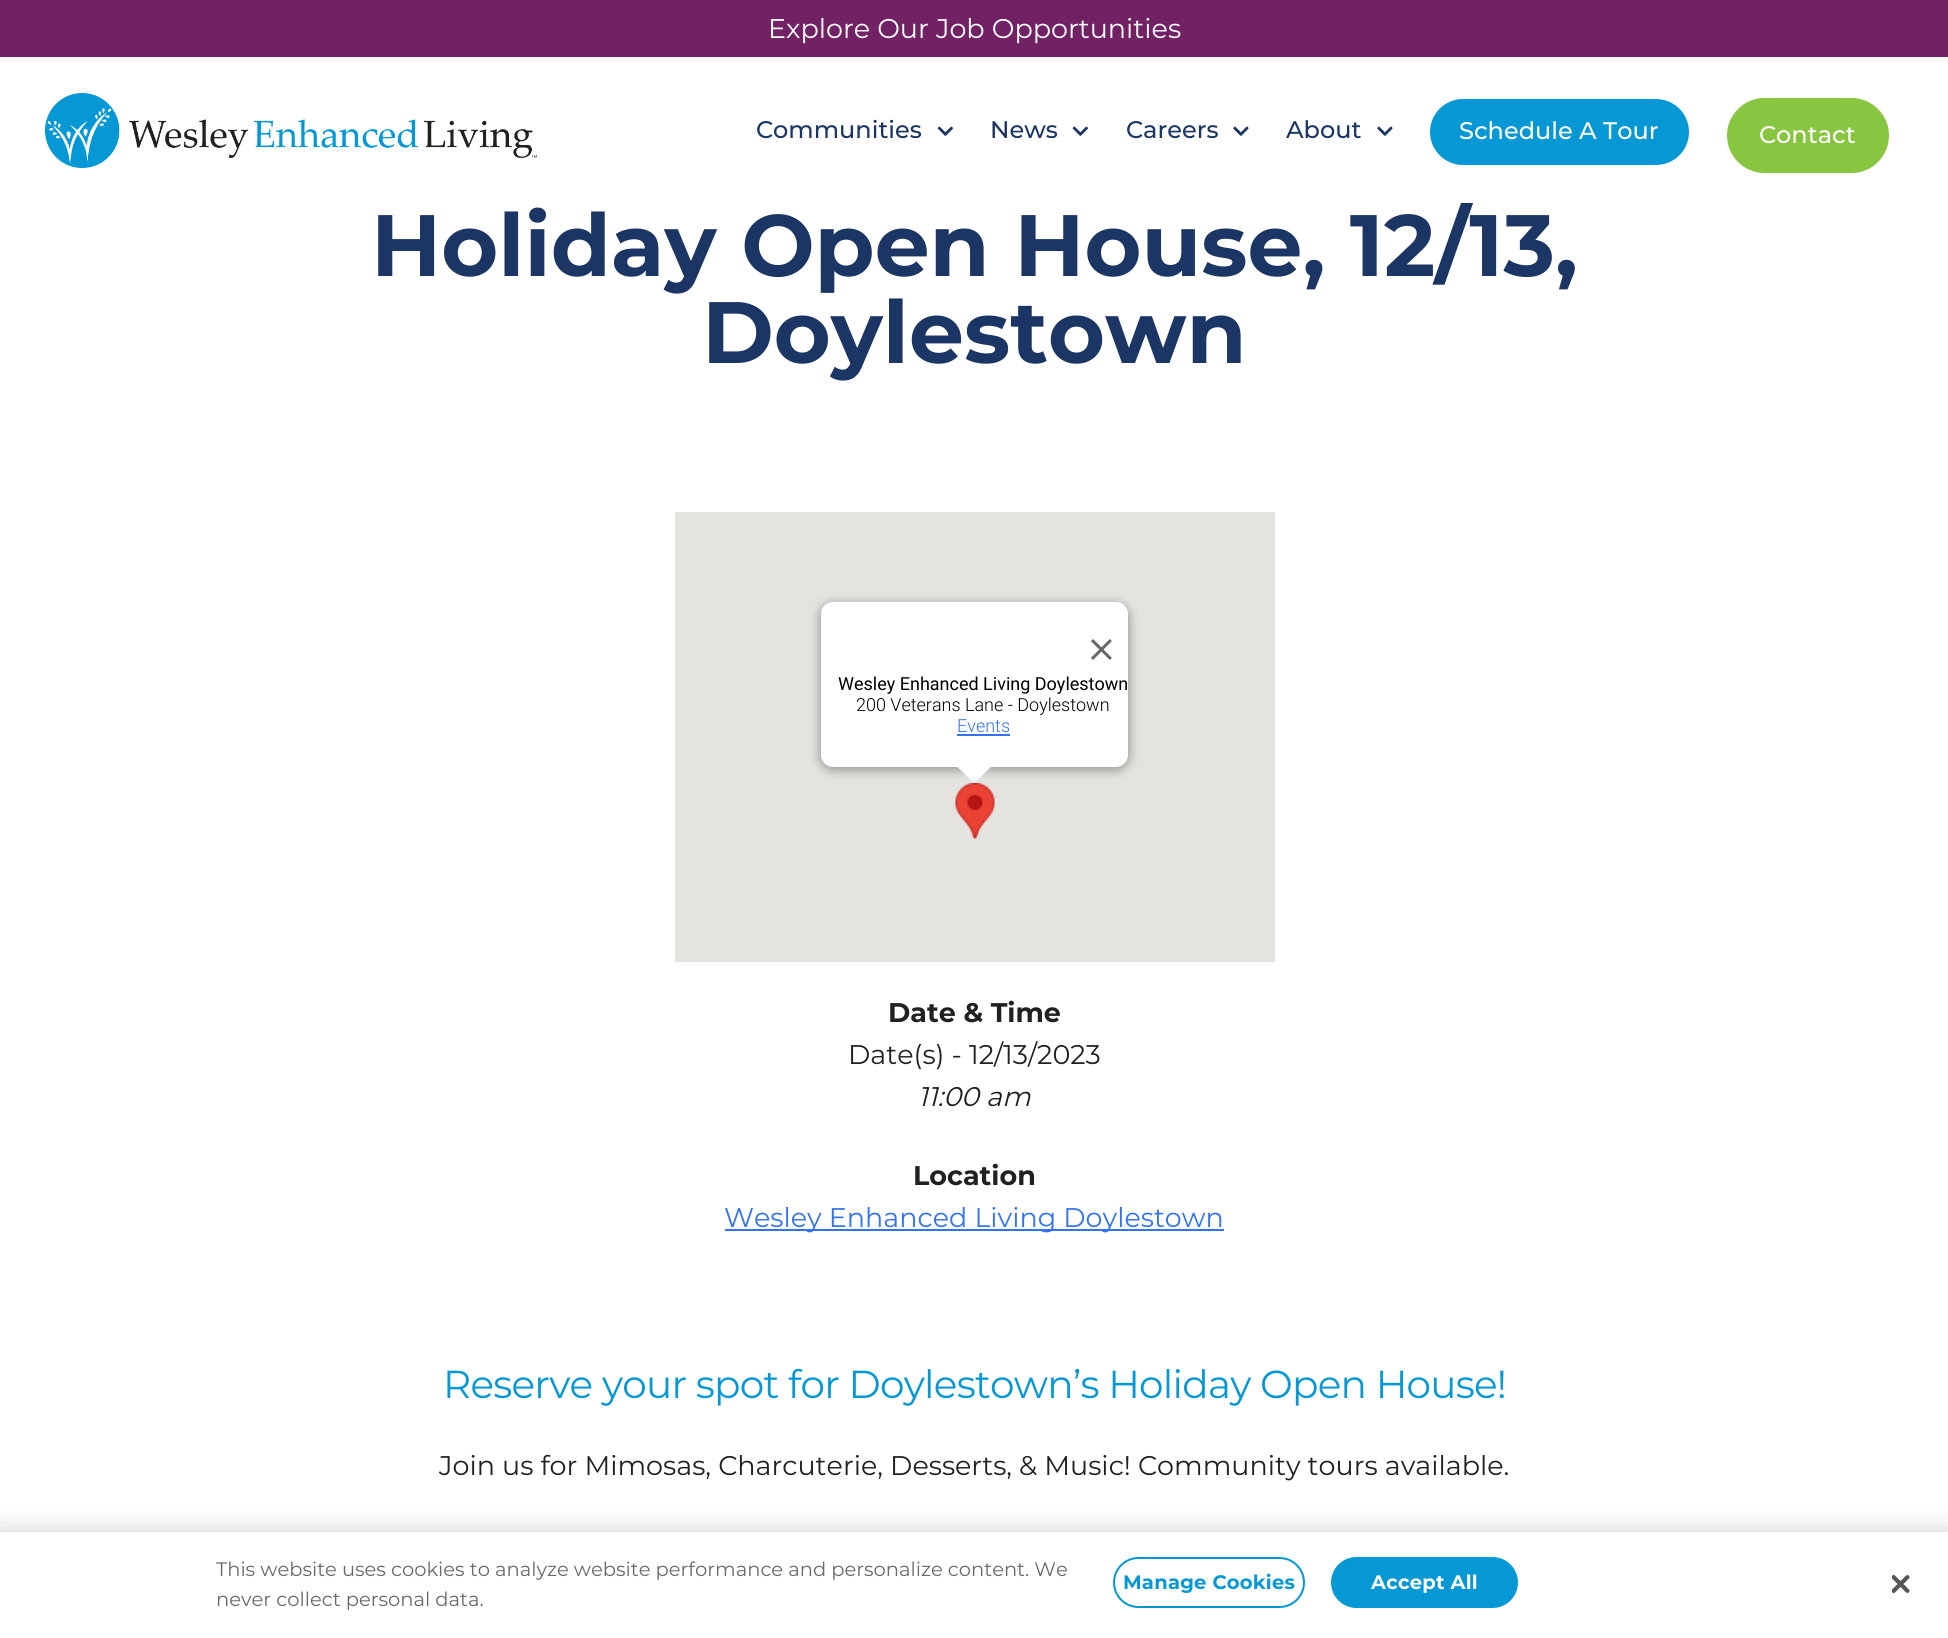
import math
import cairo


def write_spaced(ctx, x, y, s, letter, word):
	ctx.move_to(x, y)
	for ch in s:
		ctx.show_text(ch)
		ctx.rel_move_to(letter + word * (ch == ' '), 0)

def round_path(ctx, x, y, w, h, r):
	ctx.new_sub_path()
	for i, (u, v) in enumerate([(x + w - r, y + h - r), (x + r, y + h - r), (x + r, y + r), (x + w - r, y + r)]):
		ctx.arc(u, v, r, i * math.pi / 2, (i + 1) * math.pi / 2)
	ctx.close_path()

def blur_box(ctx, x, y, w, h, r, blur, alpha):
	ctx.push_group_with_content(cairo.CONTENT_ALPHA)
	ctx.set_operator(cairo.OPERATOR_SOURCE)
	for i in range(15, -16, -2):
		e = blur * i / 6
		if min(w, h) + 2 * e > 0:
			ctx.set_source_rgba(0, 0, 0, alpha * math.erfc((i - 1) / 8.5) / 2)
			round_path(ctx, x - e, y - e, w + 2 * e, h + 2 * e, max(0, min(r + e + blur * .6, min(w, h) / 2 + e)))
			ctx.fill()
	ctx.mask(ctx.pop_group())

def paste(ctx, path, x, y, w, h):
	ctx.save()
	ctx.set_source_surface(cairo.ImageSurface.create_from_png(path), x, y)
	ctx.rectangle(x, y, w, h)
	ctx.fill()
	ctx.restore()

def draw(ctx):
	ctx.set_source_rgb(1, 1, 1)
	ctx.paint()
	ctx.set_source_rgb(0.447, 0.133, 0.392)
	ctx.rectangle(0, 0, 1948, 57)
	ctx.fill()
	ctx.select_font_face('Montserrat')
	ctx.set_font_size(27)
	ctx.set_source_rgb(1, 1, 1)
	ctx.move_to(768, 38)
	ctx.show_text('Explore Our Job Opportunities')
	paste(ctx, 'media/1.png', 45, 93, 492, 75)
	ctx.select_font_face('Montserrat Medium')
	ctx.set_font_size(24)
	ctx.set_source_rgb(0.106, 0.212, 0.392)
	ctx.move_to(756, 138)
	ctx.show_text('Communities')
	paste(ctx, 'media/2.png', 937, 126, 16, 10)
	ctx.move_to(990, 138)
	ctx.show_text('News')
	paste(ctx, 'media/2.png', 1072, 126, 16, 10)
	ctx.move_to(1126, 138)
	ctx.show_text('Careers')
	paste(ctx, 'media/3.png', 1233, 126, 16, 10)
	ctx.move_to(1286, 138)
	ctx.show_text('About')
	paste(ctx, 'media/3.png', 1377, 126, 16, 10)
	ctx.set_source_rgb(0.024, 0.596, 0.835)
	round_path(ctx, 1430, 99, 259, 66, 33)
	ctx.fill()
	ctx.set_source_rgb(1, 1, 1)
	ctx.move_to(1459, 139)
	ctx.show_text('Schedule A Tour')
	ctx.set_source_rgb(0.533, 0.773, 0.251)
	round_path(ctx, 1727, 98, 162, 75, 37.5)
	ctx.fill()
	ctx.set_source_rgb(1, 1, 1)
	ctx.move_to(1759, 143)
	ctx.show_text('Contact')
	ctx.save()
	ctx.rectangle(0, 203, 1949, 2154)
	ctx.clip()
	ctx.select_font_face('Montserrat', cairo.FONT_SLANT_NORMAL, cairo.FONT_WEIGHT_BOLD)
	ctx.set_font_size(87)
	ctx.set_source_rgb(0.106, 0.212, 0.392)
	ctx.move_to(371, 276)
	ctx.show_text('Holiday Open House, 12/13,')
	ctx.restore()
	ctx.select_font_face('Montserrat', cairo.FONT_SLANT_NORMAL, cairo.FONT_WEIGHT_BOLD)
	ctx.set_font_size(87)
	ctx.set_source_rgb(0.106, 0.212, 0.392)
	ctx.move_to(702, 363)
	ctx.show_text('Doylestown')
	ctx.set_source_rgb(0.898, 0.89, 0.875)
	ctx.rectangle(675, 512, 600, 450)
	ctx.fill()
	paste(ctx, 'media/5.png', 955, 783, 40, 56)
	ctx.set_source_rgb(0, 0, 0)
	blur_box(ctx, 819, 603, 311, 168, 14, 5, 0.3)
	ctx.set_source_rgb(1, 1, 1)
	round_path(ctx, 821, 602, 307, 165, 12)
	ctx.fill()
	paste(ctx, 'media/4.png', 1091, 639, 21, 21)
	ctx.select_font_face('Roboto')
	ctx.set_font_size(18)
	ctx.set_source_rgb(0, 0, 0)
	ctx.move_to(838, 690)
	ctx.show_text('Wesley Enhanced Living Doylestown')
	ctx.select_font_face('Roboto Light')
	ctx.move_to(856, 711)
	ctx.show_text('200 Veterans Lane - Doylestown')
	ctx.set_source_rgb(0.2, 0.447, 0.941)
	ctx.move_to(957, 732)
	ctx.show_text('Events')
	ctx.rectangle(957, 734, 53, 2)
	ctx.fill()
	ctx.set_source_rgb(1, 1, 1)
	ctx.new_path()
	ctx.move_to(957, 765)
	ctx.line_to(957, 766.5)
	ctx.line_to(974, 783)
	ctx.line_to(993, 765)
	ctx.close_path()
	ctx.fill()
	ctx.select_font_face('Montserrat', cairo.FONT_SLANT_NORMAL, cairo.FONT_WEIGHT_BOLD)
	ctx.set_font_size(27)
	ctx.set_source_rgb(0.129, 0.129, 0.129)
	ctx.move_to(888, 1022)
	ctx.show_text('Date & Time')
	ctx.select_font_face('Montserrat')
	ctx.move_to(848, 1064)
	ctx.show_text('Date(s) - 12/13/2023')
	ctx.select_font_face('Montserrat', cairo.FONT_SLANT_ITALIC)
	ctx.move_to(918, 1106)
	ctx.show_text('11:00 am')
	ctx.select_font_face('Montserrat', cairo.FONT_SLANT_NORMAL, cairo.FONT_WEIGHT_BOLD)
	ctx.move_to(913, 1185)
	ctx.show_text('Location')
	ctx.set_source_rgb(0.2, 0.447, 0.941)
	ctx.rectangle(725, 1229, 499, 2)
	ctx.fill()
	ctx.select_font_face('Montserrat')
	ctx.move_to(724, 1227)
	ctx.show_text('Wesley Enhanced Living Doylestown')
	ctx.set_font_size(39)
	ctx.set_source_rgb(0.024, 0.596, 0.835)
	write_spaced(ctx, 443, 1398, 'Reserve your spot for Doylestown’s Holiday Open House!', -0.75, 0)
	ctx.set_font_size(27)
	ctx.set_source_rgb(0.129, 0.129, 0.129)
	ctx.move_to(439, 1475)
	ctx.show_text('Join us for Mimosas, Charcuterie, Desserts, & Music! Community tours available.')
	ctx.set_source_rgb(0, 0, 0)
	blur_box(ctx, 0, 1532, 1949, 106, 0, 13.5, 0.2)
	ctx.set_source_rgb(1, 1, 1)
	ctx.rectangle(0, 1532, 1948, 106)
	ctx.fill()
	ctx.set_font_size(19.5)
	ctx.set_source_rgb(0.412, 0.412, 0.412)
	ctx.move_to(216, 1576)
	ctx.show_text('This website uses cookies to analyze website performance and personalize content. We')
	ctx.move_to(216, 1606)
	ctx.show_text('never collect personal data.')
	round_path(ctx, 1114, 1558, 190, 49, 24.5)
	ctx.set_source_rgb(0.024, 0.596, 0.835)
	ctx.stroke()
	ctx.select_font_face('Montserrat', cairo.FONT_SLANT_NORMAL, cairo.FONT_WEIGHT_BOLD)
	write_spaced(ctx, 1123, 1589, 'Manage Cookies', 0.25, 0)
	round_path(ctx, 1332, 1558, 185, 49, 24.5)
	ctx.fill_preserve()
	ctx.stroke()
	ctx.set_source_rgb(1, 1, 1)
	write_spaced(ctx, 1371, 1589, 'Accept All', 0.25, 0)
	paste(ctx, 'media/6.png', 1892, 1575, 18, 18)


surface = cairo.ImageSurface(cairo.FORMAT_RGB24, 1948, 1638)
ctx = cairo.Context(surface)
options = cairo.FontOptions()
options.set_hint_metrics(cairo.HINT_METRICS_OFF)
options.set_hint_style(cairo.HINT_STYLE_NONE)
ctx.set_font_options(options)
ctx.set_miter_limit(4)
draw(ctx)
surface.write_to_png('image.png')
